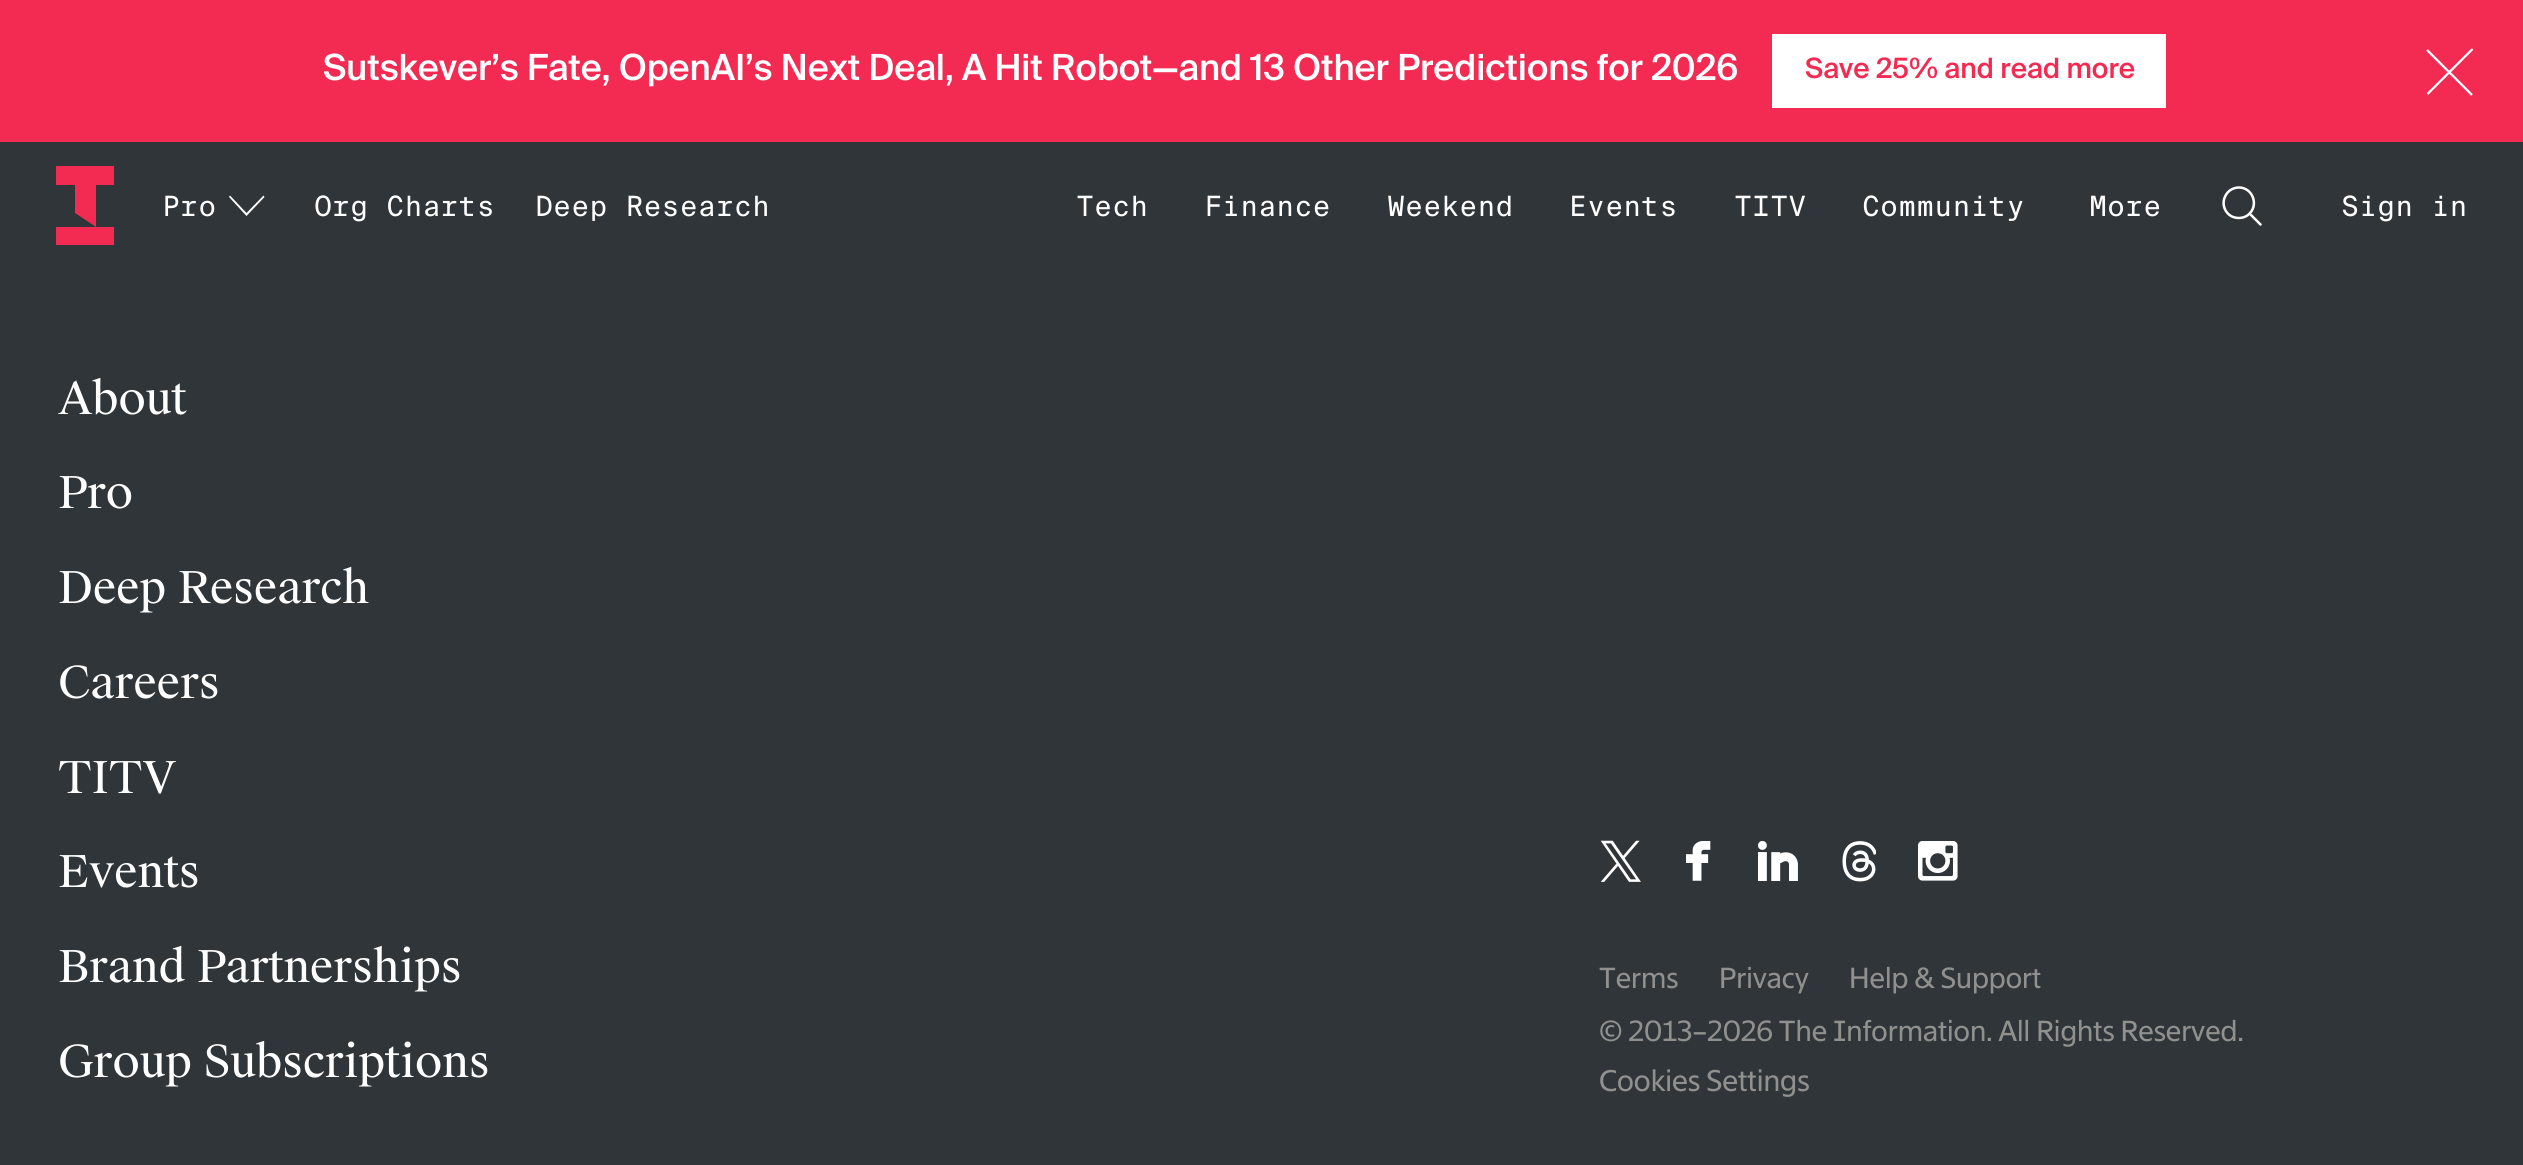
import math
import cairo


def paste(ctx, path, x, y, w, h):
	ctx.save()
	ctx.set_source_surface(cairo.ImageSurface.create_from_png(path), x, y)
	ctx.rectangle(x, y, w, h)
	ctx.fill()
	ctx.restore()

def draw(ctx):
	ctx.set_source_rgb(0.184, 0.208, 0.22)
	ctx.paint()
	ctx.set_source_rgb(0.953, 0.165, 0.322)
	ctx.rectangle(0, 0, 2523, 142)
	ctx.fill()
	ctx.select_font_face('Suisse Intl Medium')
	ctx.set_font_size(36)
	ctx.set_source_rgb(1, 1, 1)
	ctx.move_to(323, 80)
	ctx.show_text('Sutskever’s Fate, OpenAI’s Next Deal, A Hit Robot—and 13 Other Predictions for 2026')
	ctx.rectangle(1772, 34, 394, 74)
	ctx.fill()
	ctx.set_font_size(28)
	ctx.set_source_rgb(0.953, 0.165, 0.322)
	ctx.move_to(1805, 78)
	ctx.show_text('Save 25% and read more')
	ctx.new_path()
	ctx.move_to(2427.5, 94)
	ctx.line_to(2472.5, 49)
	ctx.move_to(2472, 95)
	ctx.line_to(2427, 50)
	ctx.set_source_rgb(1, 1, 1)
	ctx.set_line_width(2.3)
	ctx.stroke()
	ctx.set_source_rgb(0.953, 0.165, 0.322)
	ctx.new_path()
	ctx.move_to(114, 227)
	ctx.line_to(56, 227)
	ctx.line_to(56, 245)
	ctx.line_to(114, 245)
	ctx.close_path()
	ctx.move_to(75, 185)
	ctx.line_to(75, 213)
	ctx.line_to(96, 227)
	ctx.line_to(96, 185)
	ctx.line_to(114, 185)
	ctx.line_to(114, 166)
	ctx.line_to(56, 166)
	ctx.line_to(56, 185)
	ctx.close_path()
	ctx.fill()
	ctx.select_font_face('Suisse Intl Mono')
	ctx.set_source_rgb(1, 1, 1)
	ctx.move_to(162, 216)
	ctx.show_text('Pro')
	ctx.set_fill_rule(cairo.FILL_RULE_EVEN_ODD)
	ctx.new_path()
	ctx.move_to(264.5, 197)
	ctx.line_to(246.5, 216)
	ctx.line_to(229, 197)
	ctx.line_to(230, 195.5)
	ctx.line_to(246.5, 213)
	ctx.line_to(263.5, 195.5)
	ctx.close_path()
	ctx.fill()
	for x, y, s in [
		(314, 216, 'Org Charts'),
		(535, 216, 'Deep Research'),
		(1076, 216, 'Tech'),
		(1204, 216, 'Finance'),
		(1387, 216, 'Weekend'),
		(1569, 216, 'Events'),
		(1734, 216, 'TITV'),
		(1862, 216, 'Community'),
		(2089, 216, 'More'),
	]:
		ctx.move_to(x, y)
		ctx.show_text(s)
	ctx.new_path()
	ctx.move_to(2251, 215)
	ctx.line_to(2260.5, 224.5)
	ctx.move_to(2239, 218)
	ctx.curve_to(2242, 218, 2245.5, 217, 2248, 215)
	ctx.curve_to(2259.5, 206, 2253, 187.5, 2239, 187.5)
	ctx.curve_to(2224.5, 187.5, 2218, 206, 2229.5, 215)
	ctx.curve_to(2232, 217, 2235.5, 218, 2239, 218)
	ctx.close_path()
	ctx.set_line_width(2.5)
	ctx.set_line_cap(cairo.LINE_CAP_ROUND)
	ctx.set_line_join(cairo.LINE_JOIN_ROUND)
	ctx.stroke()
	ctx.move_to(2341, 216)
	ctx.show_text('Sign in')
	ctx.select_font_face('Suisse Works')
	ctx.set_font_size(44)
	for x, y, s in [
		(58, 414, 'About'),
		(58, 508, 'Pro'),
		(58, 603, 'Deep Research'),
		(58, 698, 'Careers'),
		(58, 793, 'TITV'),
		(58, 887, 'Events'),
		(58, 982, 'Brand Partnerships'),
		(58, 1077, 'Group Subscriptions'),
	]:
		ctx.move_to(x, y)
		ctx.show_text(s)
	paste(ctx, 'media/1.png', 1600, 840, 41, 42)
	paste(ctx, 'media/2.png', 1686, 841, 25, 40)
	paste(ctx, 'media/3.png', 1758, 841, 40, 40)
	paste(ctx, 'media/4.png', 1842, 841, 34, 41)
	paste(ctx, 'media/5.png', 1918, 841, 40, 40)
	ctx.select_font_face('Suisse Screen')
	ctx.set_font_size(28)
	ctx.set_source_rgb(0.565, 0.569, 0.561)
	for x, y, s in [
		(1599, 988, 'Terms'),
		(1719, 988, 'Privacy'),
		(1849, 988, 'Help & Support'),
		(1599, 1041, '© 2013–2026 The Information. All Rights Reserved.'),
	]:
		ctx.move_to(x, y)
		ctx.show_text(s)
	ctx.set_font_size(28.75)
	ctx.move_to(1599, 1091)
	ctx.show_text('Cookies Settings')


surface = cairo.ImageSurface(cairo.FORMAT_RGB24, 2523, 1165)
ctx = cairo.Context(surface)
options = cairo.FontOptions()
options.set_hint_metrics(cairo.HINT_METRICS_OFF)
options.set_hint_style(cairo.HINT_STYLE_NONE)
ctx.set_font_options(options)
ctx.set_miter_limit(4)
draw(ctx)
surface.write_to_png('image.png')
